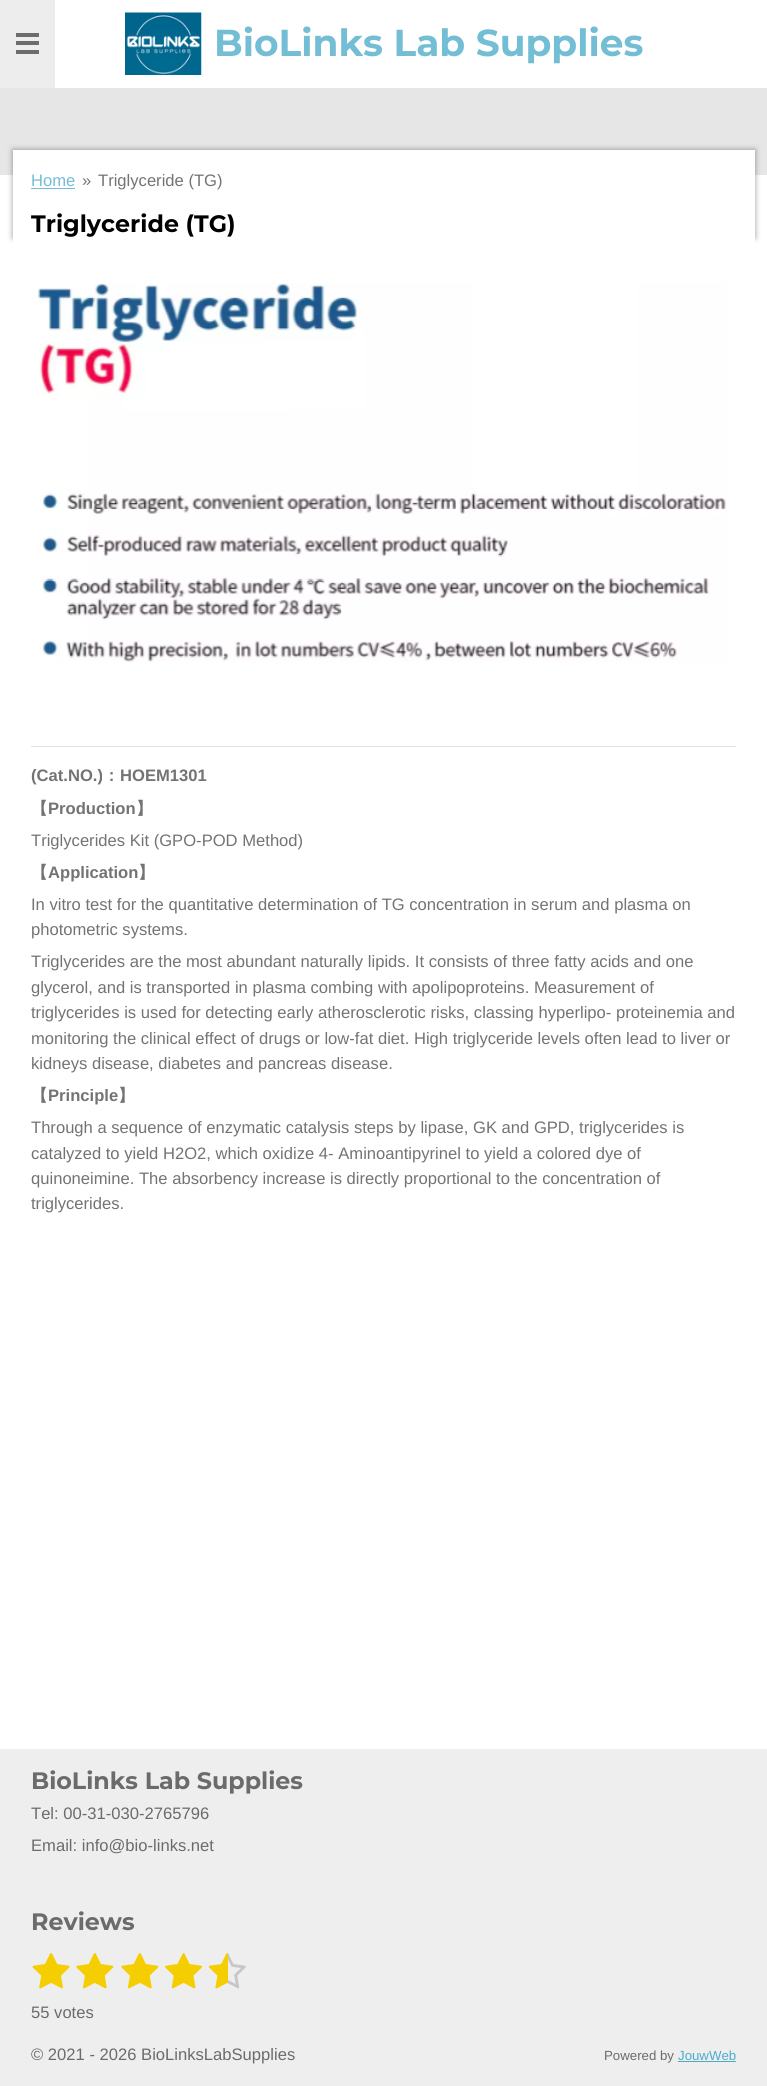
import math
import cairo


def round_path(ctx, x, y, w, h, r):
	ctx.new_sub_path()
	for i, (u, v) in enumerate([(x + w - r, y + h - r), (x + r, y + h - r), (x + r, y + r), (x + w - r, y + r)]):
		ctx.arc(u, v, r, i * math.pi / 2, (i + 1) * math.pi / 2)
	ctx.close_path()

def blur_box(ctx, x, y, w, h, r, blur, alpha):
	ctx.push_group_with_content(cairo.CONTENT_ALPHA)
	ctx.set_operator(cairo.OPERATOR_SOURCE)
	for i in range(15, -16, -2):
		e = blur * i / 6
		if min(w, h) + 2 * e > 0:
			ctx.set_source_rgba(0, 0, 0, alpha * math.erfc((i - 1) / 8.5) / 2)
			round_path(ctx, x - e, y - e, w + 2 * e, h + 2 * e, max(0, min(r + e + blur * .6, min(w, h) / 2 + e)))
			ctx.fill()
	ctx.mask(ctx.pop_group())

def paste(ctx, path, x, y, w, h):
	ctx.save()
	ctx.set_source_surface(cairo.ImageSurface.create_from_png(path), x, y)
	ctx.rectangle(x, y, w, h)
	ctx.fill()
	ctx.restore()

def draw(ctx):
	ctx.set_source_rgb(1, 1, 1)
	ctx.paint()
	ctx.set_source_rgb(0.929, 0.929, 0.929)
	ctx.rectangle(0, 0, 55, 88)
	ctx.fill()
	ctx.set_source_rgb(0.427, 0.427, 0.427)
	ctx.rectangle(16, 41, 23, 4)
	ctx.rectangle(16, 33, 23, 4)
	ctx.rectangle(16, 50, 23, 4)
	ctx.fill()
	paste(ctx, 'media/1.png', 125, 12, 77, 63)
	ctx.select_font_face('Montserrat', cairo.FONT_SLANT_NORMAL, cairo.FONT_WEIGHT_BOLD)
	ctx.set_font_size(37.5)
	ctx.set_source_rgb(0.451, 0.741, 0.835)
	ctx.move_to(214, 56)
	ctx.show_text('BioLinks Lab Supplies')
	ctx.set_source_rgb(0.902, 0.902, 0.902)
	ctx.rectangle(0, 88, 767, 87)
	ctx.fill()
	ctx.set_source_rgb(0, 0, 0)
	blur_box(ctx, 13, 150, 742, 88, 0, 3, 0.4)
	ctx.set_source_rgb(1, 1, 1)
	ctx.rectangle(13, 150, 742, 94)
	ctx.fill()
	ctx.select_font_face('Liberation Sans')
	ctx.set_font_size(16.6)
	ctx.set_source_rgb(0.451, 0.741, 0.835)
	ctx.move_to(31, 186)
	ctx.show_text('Home')
	ctx.rectangle(31, 188, 44, 1)
	ctx.fill()
	ctx.set_source_rgb(0.451, 0.451, 0.451)
	ctx.move_to(82, 186)
	ctx.show_text('»')
	ctx.move_to(98, 186)
	ctx.show_text('Triglyceride (TG)')
	ctx.select_font_face('Montserrat', cairo.FONT_SLANT_NORMAL, cairo.FONT_WEIGHT_BOLD)
	ctx.set_font_size(23.75)
	ctx.set_source_rgb(0, 0, 0)
	ctx.move_to(31, 232)
	ctx.show_text('Triglyceride (TG)')
	paste(ctx, 'media/2.png', 37, 283, 690, 379)
	ctx.set_source_rgb(0.89, 0.89, 0.89)
	ctx.rectangle(31, 746, 705, 1)
	ctx.fill()
	ctx.select_font_face('Liberation Sans', cairo.FONT_SLANT_NORMAL, cairo.FONT_WEIGHT_BOLD)
	ctx.set_font_size(16.6)
	ctx.set_source_rgb(0.451, 0.451, 0.451)
	ctx.move_to(31, 781)
	ctx.show_text('(Cat.NO.)')
	ctx.select_font_face('WenQuanYi Zen Hei', cairo.FONT_SLANT_NORMAL, cairo.FONT_WEIGHT_BOLD)
	ctx.move_to(103, 781)
	ctx.show_text('：')
	ctx.select_font_face('Liberation Sans', cairo.FONT_SLANT_NORMAL, cairo.FONT_WEIGHT_BOLD)
	ctx.move_to(120, 781)
	ctx.show_text('HOEM1301')
	ctx.select_font_face('WenQuanYi Zen Hei', cairo.FONT_SLANT_NORMAL, cairo.FONT_WEIGHT_BOLD)
	ctx.move_to(31, 814)
	ctx.show_text('【')
	ctx.select_font_face('Liberation Sans', cairo.FONT_SLANT_NORMAL, cairo.FONT_WEIGHT_BOLD)
	ctx.move_to(48, 814)
	ctx.show_text('Production')
	ctx.select_font_face('WenQuanYi Zen Hei', cairo.FONT_SLANT_NORMAL, cairo.FONT_WEIGHT_BOLD)
	ctx.move_to(136, 814)
	ctx.show_text('】')
	ctx.select_font_face('Liberation Sans')
	ctx.move_to(31, 846)
	ctx.show_text('Triglycerides Kit (GPO-POD Method)')
	ctx.select_font_face('WenQuanYi Zen Hei', cairo.FONT_SLANT_NORMAL, cairo.FONT_WEIGHT_BOLD)
	ctx.move_to(31, 878)
	ctx.show_text('【')
	ctx.select_font_face('Liberation Sans', cairo.FONT_SLANT_NORMAL, cairo.FONT_WEIGHT_BOLD)
	ctx.move_to(48, 878)
	ctx.show_text('Application')
	ctx.select_font_face('WenQuanYi Zen Hei', cairo.FONT_SLANT_NORMAL, cairo.FONT_WEIGHT_BOLD)
	ctx.move_to(138, 878)
	ctx.show_text('】')
	ctx.select_font_face('Liberation Sans')
	for x, y, s in [
		(31, 910, 'In vitro test for the quantitative determination of TG concentration in serum and plasma on'),
		(31, 935, 'photometric systems.'),
		(31, 967, 'Triglycerides are the most abundant naturally lipids. It consists of three fatty acids and one'),
		(31, 993, 'glycerol, and is transported in plasma combing with apolipoproteins. Measurement of'),
		(31, 1018, 'triglycerides is used for detecting early atherosclerotic risks, classing hyperlipo- proteinemia and'),
		(31, 1044, 'monitoring the clinical effect of drugs or low-fat diet. High triglyceride levels often lead to liver or'),
		(31, 1069, 'kidneys disease, diabetes and pancreas disease.'),
	]:
		ctx.move_to(x, y)
		ctx.show_text(s)
	ctx.select_font_face('WenQuanYi Zen Hei', cairo.FONT_SLANT_NORMAL, cairo.FONT_WEIGHT_BOLD)
	ctx.move_to(31, 1101)
	ctx.show_text('【')
	ctx.select_font_face('Liberation Sans', cairo.FONT_SLANT_NORMAL, cairo.FONT_WEIGHT_BOLD)
	ctx.move_to(48, 1101)
	ctx.show_text('Principle')
	ctx.select_font_face('WenQuanYi Zen Hei', cairo.FONT_SLANT_NORMAL, cairo.FONT_WEIGHT_BOLD)
	ctx.move_to(118, 1101)
	ctx.show_text('】')
	ctx.select_font_face('Liberation Sans')
	for x, y, s in [
		(31, 1133, 'Through a sequence of enzymatic catalysis steps by lipase, GK and GPD, triglycerides is'),
		(31, 1159, 'catalyzed to yield H2O2, which oxidize 4- Aminoantipyrinel to yield a colored dye of'),
		(31, 1184, 'quinoneimine. The absorbency increase is directly proportional to the concentration of'),
		(31, 1209, 'triglycerides.'),
	]:
		ctx.move_to(x, y)
		ctx.show_text(s)
	ctx.set_source_rgb(0.933, 0.933, 0.933)
	ctx.rectangle(0, 1749, 767, 337)
	ctx.fill()
	ctx.select_font_face('Montserrat', cairo.FONT_SLANT_NORMAL, cairo.FONT_WEIGHT_BOLD)
	ctx.set_font_size(23.75)
	ctx.set_source_rgb(0.42, 0.42, 0.42)
	ctx.move_to(31, 1789)
	ctx.show_text('BioLinks Lab Supplies')
	ctx.select_font_face('Liberation Sans')
	ctx.set_font_size(16.6)
	ctx.move_to(31, 1819)
	ctx.show_text('Tel: 00-31-030-2765796')
	ctx.move_to(31, 1851)
	ctx.show_text('Email: info@bio-links.net')
	ctx.select_font_face('Montserrat', cairo.FONT_SLANT_NORMAL, cairo.FONT_WEIGHT_BOLD)
	ctx.set_font_size(23.75)
	ctx.move_to(31, 1930)
	ctx.show_text('Reviews')
	paste(ctx, 'media/3.png', 32, 1953, 38, 36)
	paste(ctx, 'media/4.png', 76, 1953, 38, 36)
	paste(ctx, 'media/4.png', 121, 1953, 38, 36)
	paste(ctx, 'media/5.png', 165, 1953, 38, 36)
	paste(ctx, 'media/6.png', 208, 1953, 20, 36)
	paste(ctx, 'media/7.png', 228, 1953, 18, 36)
	ctx.select_font_face('Liberation Sans')
	ctx.set_font_size(16.6)
	ctx.move_to(31, 2018)
	ctx.show_text('55 votes')
	ctx.move_to(31, 2060)
	ctx.show_text('© 2021 - 2026 BioLinksLabSupplies')
	ctx.set_font_size(13.25)
	ctx.move_to(604, 2060)
	ctx.show_text('Powered by')
	ctx.set_source_rgb(0.298, 0.671, 0.788)
	ctx.move_to(678, 2060)
	ctx.show_text('JouwWeb')
	ctx.rectangle(678, 2061, 58, 1)
	ctx.fill()


surface = cairo.ImageSurface(cairo.FORMAT_RGB24, 767, 2086)
ctx = cairo.Context(surface)
options = cairo.FontOptions()
options.set_hint_metrics(cairo.HINT_METRICS_OFF)
options.set_hint_style(cairo.HINT_STYLE_NONE)
ctx.set_font_options(options)
ctx.set_miter_limit(4)
draw(ctx)
surface.write_to_png('image.png')
